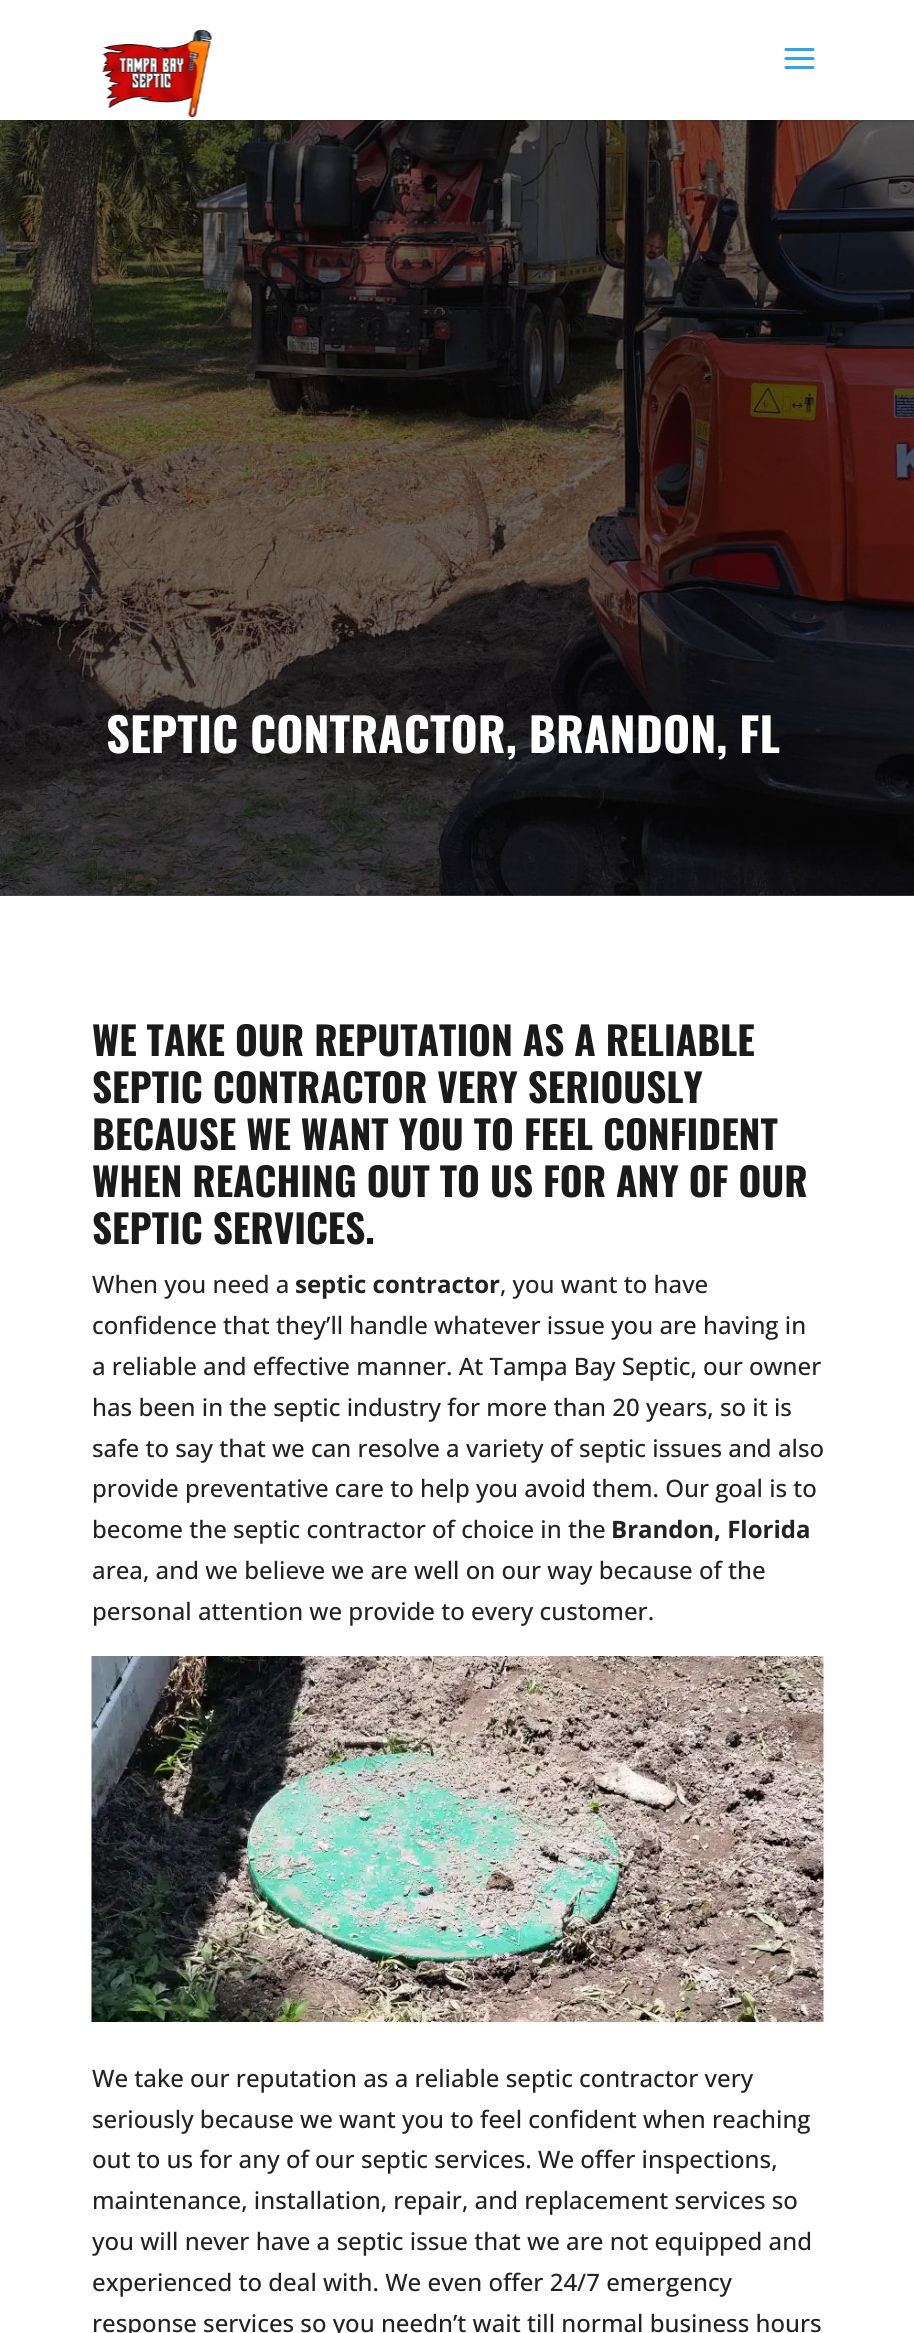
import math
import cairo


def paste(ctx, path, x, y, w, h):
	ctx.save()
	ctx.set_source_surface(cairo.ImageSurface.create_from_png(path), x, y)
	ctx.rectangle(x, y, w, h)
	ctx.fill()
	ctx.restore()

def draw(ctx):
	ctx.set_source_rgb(1, 1, 1)
	ctx.paint()
	ctx.set_source_rgb(0.306, 0.306, 0.306)
	ctx.rectangle(0, 895, 914, 1)
	ctx.fill()
	paste(ctx, 'media/3.png', 0, 120, 914, 776)
	ctx.set_source_rgba(0, 0, 0, 0.1)
	ctx.rectangle(0, 120, 914, 2)
	ctx.fill()
	paste(ctx, 'media/1.png', 102, 29, 110, 88)
	paste(ctx, 'media/2.png', 784, 48, 31, 21)
	ctx.select_font_face('Oswald', cairo.FONT_SLANT_NORMAL, cairo.FONT_WEIGHT_BOLD)
	ctx.set_font_size(46.5)
	ctx.set_source_rgb(1, 1, 1)
	ctx.move_to(106, 753)
	ctx.show_text('SEPTIC CONTRACTOR, BRANDON, FL')
	ctx.set_font_size(39)
	ctx.set_source_rgb(0.102, 0.102, 0.102)
	for x, y, s in [
		(92, 1056, 'WE TAKE OUR REPUTATION AS A RELIABLE'),
		(92, 1103, 'SEPTIC CONTRACTOR VERY SERIOUSLY'),
		(92, 1150, 'BECAUSE WE WANT YOU TO FEEL CONFIDENT'),
		(92, 1197, 'WHEN REACHING OUT TO US FOR ANY OF OUR'),
		(92, 1244, 'SEPTIC SERVICES.'),
	]:
		ctx.move_to(x, y)
		ctx.show_text(s)
	ctx.select_font_face('Open Sans Medium')
	ctx.set_font_size(24)
	ctx.set_source_rgb(0.133, 0.133, 0.133)
	ctx.move_to(92, 1293)
	ctx.show_text('When you need a')
	ctx.select_font_face('Open Sans', cairo.FONT_SLANT_NORMAL, cairo.FONT_WEIGHT_BOLD)
	ctx.move_to(295, 1293)
	ctx.show_text('septic contractor')
	ctx.select_font_face('Open Sans Medium')
	for x, y, s in [
		(500, 1293, ', you want to have'),
		(92, 1334, 'confidence that they’ll handle whatever issue you are having in'),
		(92, 1375, 'a reliable and effective manner. At Tampa Bay Septic, our owner'),
		(92, 1416, 'has been in the septic industry for more than 20 years, so it is'),
		(92, 1457, 'safe to say that we can resolve a variety of septic issues and also'),
		(92, 1497, 'provide preventative care to help you avoid them. Our goal is to'),
		(92, 1538, 'become the septic contractor of choice in the'),
	]:
		ctx.move_to(x, y)
		ctx.show_text(s)
	ctx.select_font_face('Open Sans', cairo.FONT_SLANT_NORMAL, cairo.FONT_WEIGHT_BOLD)
	ctx.move_to(611, 1538)
	ctx.show_text('Brandon, Florida')
	ctx.select_font_face('Open Sans Medium')
	ctx.move_to(92, 1579)
	ctx.show_text('area, and we believe we are well on our way because of the')
	ctx.move_to(92, 1620)
	ctx.show_text('personal attention we provide to every customer.')
	paste(ctx, 'media/4.png', 91, 1656, 733, 366)
	for x, y, s in [
		(92, 2087, 'We take our reputation as a reliable septic contractor very'),
		(92, 2128, 'seriously because we want you to feel confident when reaching'),
		(92, 2168, 'out to us for any of our septic services. We offer inspections,'),
		(92, 2209, 'maintenance, installation, repair, and replacement services so'),
		(92, 2250, 'you will never have a septic issue that we are not equipped and'),
		(92, 2291, 'experienced to deal with. We even offer 24/7 emergency'),
		(92, 2332, 'response services so you needn’t wait till normal business hours'),
	]:
		ctx.move_to(x, y)
		ctx.show_text(s)


surface = cairo.ImageSurface(cairo.FORMAT_RGB24, 914, 2333)
ctx = cairo.Context(surface)
options = cairo.FontOptions()
options.set_hint_metrics(cairo.HINT_METRICS_OFF)
options.set_hint_style(cairo.HINT_STYLE_NONE)
ctx.set_font_options(options)
ctx.set_miter_limit(4)
draw(ctx)
surface.write_to_png('image.png')
